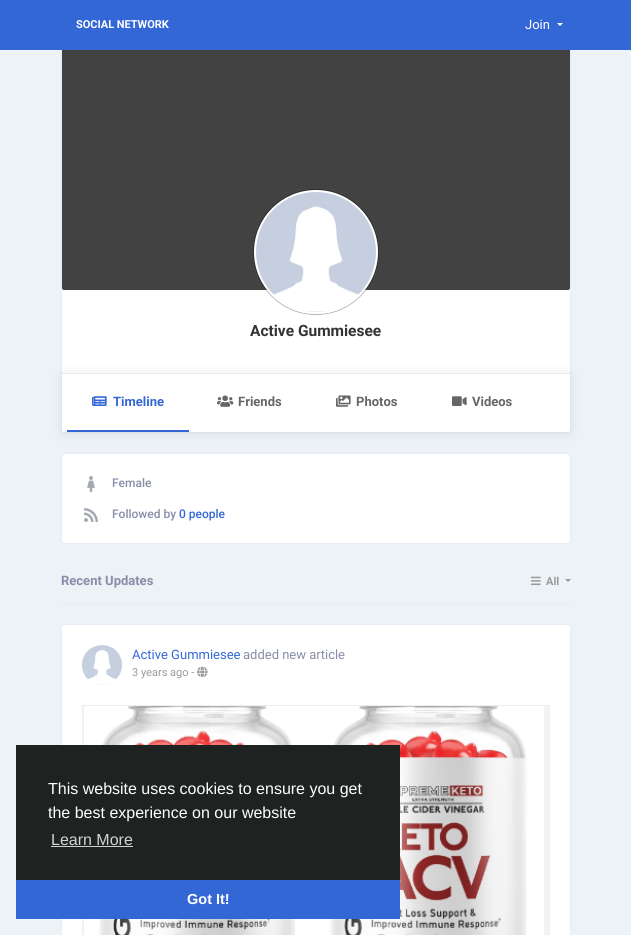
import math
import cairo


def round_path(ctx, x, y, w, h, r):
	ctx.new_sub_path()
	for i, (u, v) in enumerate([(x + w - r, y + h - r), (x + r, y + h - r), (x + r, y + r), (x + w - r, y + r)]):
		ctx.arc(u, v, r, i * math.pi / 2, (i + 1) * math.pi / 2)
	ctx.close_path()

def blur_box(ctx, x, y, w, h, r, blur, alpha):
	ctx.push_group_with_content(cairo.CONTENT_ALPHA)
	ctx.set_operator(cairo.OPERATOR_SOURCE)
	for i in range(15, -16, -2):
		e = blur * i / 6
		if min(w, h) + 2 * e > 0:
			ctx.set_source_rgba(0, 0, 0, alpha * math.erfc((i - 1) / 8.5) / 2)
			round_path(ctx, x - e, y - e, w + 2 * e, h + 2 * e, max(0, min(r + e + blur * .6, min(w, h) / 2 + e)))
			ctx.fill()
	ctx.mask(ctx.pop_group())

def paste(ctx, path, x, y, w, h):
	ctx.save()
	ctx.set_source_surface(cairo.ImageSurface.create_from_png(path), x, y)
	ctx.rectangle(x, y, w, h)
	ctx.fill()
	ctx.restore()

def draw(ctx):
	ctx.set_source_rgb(0.929, 0.949, 0.965)
	ctx.paint()
	ctx.set_source_rgb(0.2, 0.404, 0.839)
	ctx.rectangle(0, 0, 631, 50)
	ctx.fill()
	ctx.select_font_face('Roboto', cairo.FONT_SLANT_NORMAL, cairo.FONT_WEIGHT_BOLD)
	ctx.set_font_size(11)
	ctx.set_source_rgb(1, 1, 1)
	ctx.move_to(76, 28)
	ctx.show_text('SOCIAL NETWORK')
	ctx.select_font_face('Roboto')
	ctx.set_font_size(13)
	ctx.move_to(525, 29)
	ctx.show_text('Join')
	ctx.new_path()
	ctx.move_to(557, 23)
	ctx.line_to(563, 23)
	ctx.line_to(560, 26)
	ctx.close_path()
	ctx.fill()
	ctx.set_source_rgb(0.902, 0.925, 0.961)
	ctx.rectangle(570, 50, 1, 383)
	ctx.rectangle(61, 432, 510, 1)
	ctx.rectangle(61, 50, 1, 383)
	ctx.fill()
	ctx.set_source_rgb(0.259, 0.259, 0.259)
	ctx.new_path()
	ctx.move_to(62, 50)
	ctx.line_to(570, 50)
	ctx.line_to(570, 288)
	ctx.curve_to(570, 289, 569, 290, 568, 290)
	ctx.line_to(64, 290)
	ctx.curve_to(63, 290, 62, 289, 62, 288)
	ctx.close_path()
	ctx.fill()
	ctx.set_source_rgb(1, 1, 1)
	ctx.rectangle(62, 290, 508, 83)
	ctx.fill()
	ctx.arc(316, 252, 62.5, 0, 2 * math.pi)
	ctx.set_source_rgba(0, 0, 0, 0.3)
	ctx.set_line_width(1)
	ctx.stroke()
	ctx.set_source_rgb(1, 1, 1)
	ctx.arc(316, 252, 62, 0, 2 * math.pi)
	ctx.fill()
	paste(ctx, 'media/1.png', 256, 192, 120, 120)
	ctx.select_font_face('Roboto', cairo.FONT_SLANT_NORMAL, cairo.FONT_WEIGHT_BOLD)
	ctx.set_font_size(15.5)
	ctx.set_source_rgb(0.2, 0.2, 0.2)
	ctx.move_to(250, 336)
	ctx.show_text('Active Gummiesee')
	ctx.set_source_rgb(0, 0, 0)
	blur_box(ctx, 62, 374, 508, 59, 2, 6.5, 0.08)
	ctx.set_source_rgb(1, 1, 1)
	ctx.new_path()
	ctx.move_to(62, 373)
	ctx.line_to(570, 373)
	ctx.line_to(570, 430)
	ctx.curve_to(570, 431, 569, 432, 568, 432)
	ctx.line_to(64, 432)
	ctx.curve_to(63, 432, 62, 431, 62, 430)
	ctx.close_path()
	ctx.fill()
	ctx.set_source_rgb(0.902, 0.925, 0.961)
	ctx.rectangle(62, 373, 508, 1)
	ctx.fill()
	ctx.set_source_rgb(0.2, 0.404, 0.839)
	ctx.rectangle(67, 430, 122, 2)
	ctx.fill()
	paste(ctx, 'media/2.png', 92, 396, 15, 10)
	ctx.set_font_size(13)
	ctx.move_to(113, 406)
	ctx.show_text('Timeline')
	paste(ctx, 'media/3.png', 217, 395, 17, 12)
	ctx.set_source_rgb(0.4, 0.4, 0.4)
	ctx.move_to(238, 406)
	ctx.show_text('Friends')
	paste(ctx, 'media/4.png', 336, 395, 15, 12)
	ctx.move_to(356, 406)
	ctx.show_text('Photos')
	paste(ctx, 'media/5.png', 452, 396, 15, 10)
	ctx.move_to(472, 406)
	ctx.show_text('Videos')
	ctx.set_source_rgb(1, 1, 1)
	round_path(ctx, 61.5, 453.5, 509, 90, 3.5)
	ctx.fill_preserve()
	ctx.set_source_rgb(0.902, 0.925, 0.961)
	ctx.stroke()
	paste(ctx, 'media/6.png', 87, 476, 8, 16)
	ctx.select_font_face('Roboto Medium')
	ctx.set_font_size(12)
	ctx.set_source_rgb(0.533, 0.553, 0.659)
	ctx.move_to(112, 487)
	ctx.show_text('Female')
	paste(ctx, 'media/7.png', 84, 508, 14, 14)
	ctx.move_to(112, 518)
	ctx.show_text('Followed by')
	ctx.set_source_rgb(0.2, 0.404, 0.839)
	ctx.move_to(179, 518)
	ctx.show_text('0 people')
	ctx.set_source_rgb(0.902, 0.925, 0.961)
	ctx.rectangle(61, 603, 510, 1)
	ctx.fill()
	ctx.select_font_face('Roboto', cairo.FONT_SLANT_NORMAL, cairo.FONT_WEIGHT_BOLD)
	ctx.set_font_size(13)
	ctx.set_source_rgb(0.533, 0.553, 0.659)
	ctx.move_to(61, 585)
	ctx.show_text('Recent Updates')
	paste(ctx, 'media/8.png', 531, 576, 10, 10)
	ctx.set_font_size(11)
	ctx.set_source_rgb(0.6, 0.6, 0.6)
	ctx.move_to(546, 585)
	ctx.show_text('All')
	ctx.new_path()
	ctx.move_to(565, 579)
	ctx.line_to(571, 579)
	ctx.line_to(568, 582)
	ctx.close_path()
	ctx.fill()
	ctx.set_source_rgb(1, 1, 1)
	round_path(ctx, 61.5, 624.5, 509, 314, 2.5)
	ctx.fill_preserve()
	ctx.set_source_rgb(0.902, 0.925, 0.961)
	ctx.stroke()
	ctx.set_source_rgb(0.933, 0.933, 0.933)
	ctx.arc(102, 665, 20, 0, 2 * math.pi)
	ctx.fill()
	paste(ctx, 'media/9.png', 82, 645, 40, 40)
	ctx.select_font_face('Roboto')
	ctx.set_font_size(13)
	ctx.set_source_rgb(0.2, 0.404, 0.839)
	ctx.move_to(132, 659)
	ctx.show_text('Active Gummiesee')
	ctx.set_source_rgb(0.533, 0.553, 0.659)
	ctx.move_to(243, 659)
	ctx.show_text('added new article')
	ctx.set_font_size(11)
	ctx.set_source_rgb(0.6, 0.6, 0.6)
	ctx.move_to(132, 676)
	ctx.show_text('3 years ago -')
	paste(ctx, 'media/10.png', 197, 666, 11, 12)
	ctx.rectangle(82.5, 705.5, 467, 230)
	ctx.set_source_rgb(0.933, 0.933, 0.933)
	ctx.stroke()
	paste(ctx, 'media/11.png', 83, 706, 466, 229)
	ctx.set_source_rgb(0.118, 0.137, 0.129)
	ctx.rectangle(16, 745, 384, 135)
	ctx.fill()
	ctx.select_font_face('Liberation Sans')
	ctx.set_font_size(16)
	ctx.set_source_rgb(1, 1, 1)
	ctx.move_to(48, 794)
	ctx.show_text('This website uses cookies to ensure you get')
	ctx.move_to(48, 818)
	ctx.show_text('the best experience on our website')
	ctx.set_source_rgb(0.824, 0.827, 0.827)
	ctx.move_to(51, 845)
	ctx.show_text('Learn More')
	ctx.rectangle(51, 846, 82, 1)
	ctx.fill()
	ctx.set_source_rgb(0.2, 0.404, 0.839)
	ctx.rectangle(16, 880, 384, 39)
	ctx.fill()
	ctx.select_font_face('Liberation Sans', cairo.FONT_SLANT_NORMAL, cairo.FONT_WEIGHT_BOLD)
	ctx.set_font_size(14.5)
	ctx.set_source_rgb(1, 1, 1)
	ctx.move_to(187, 904)
	ctx.show_text('Got It!')


surface = cairo.ImageSurface(cairo.FORMAT_RGB24, 631, 935)
ctx = cairo.Context(surface)
options = cairo.FontOptions()
options.set_hint_metrics(cairo.HINT_METRICS_OFF)
options.set_hint_style(cairo.HINT_STYLE_NONE)
ctx.set_font_options(options)
ctx.set_miter_limit(4)
draw(ctx)
surface.write_to_png('image.png')
